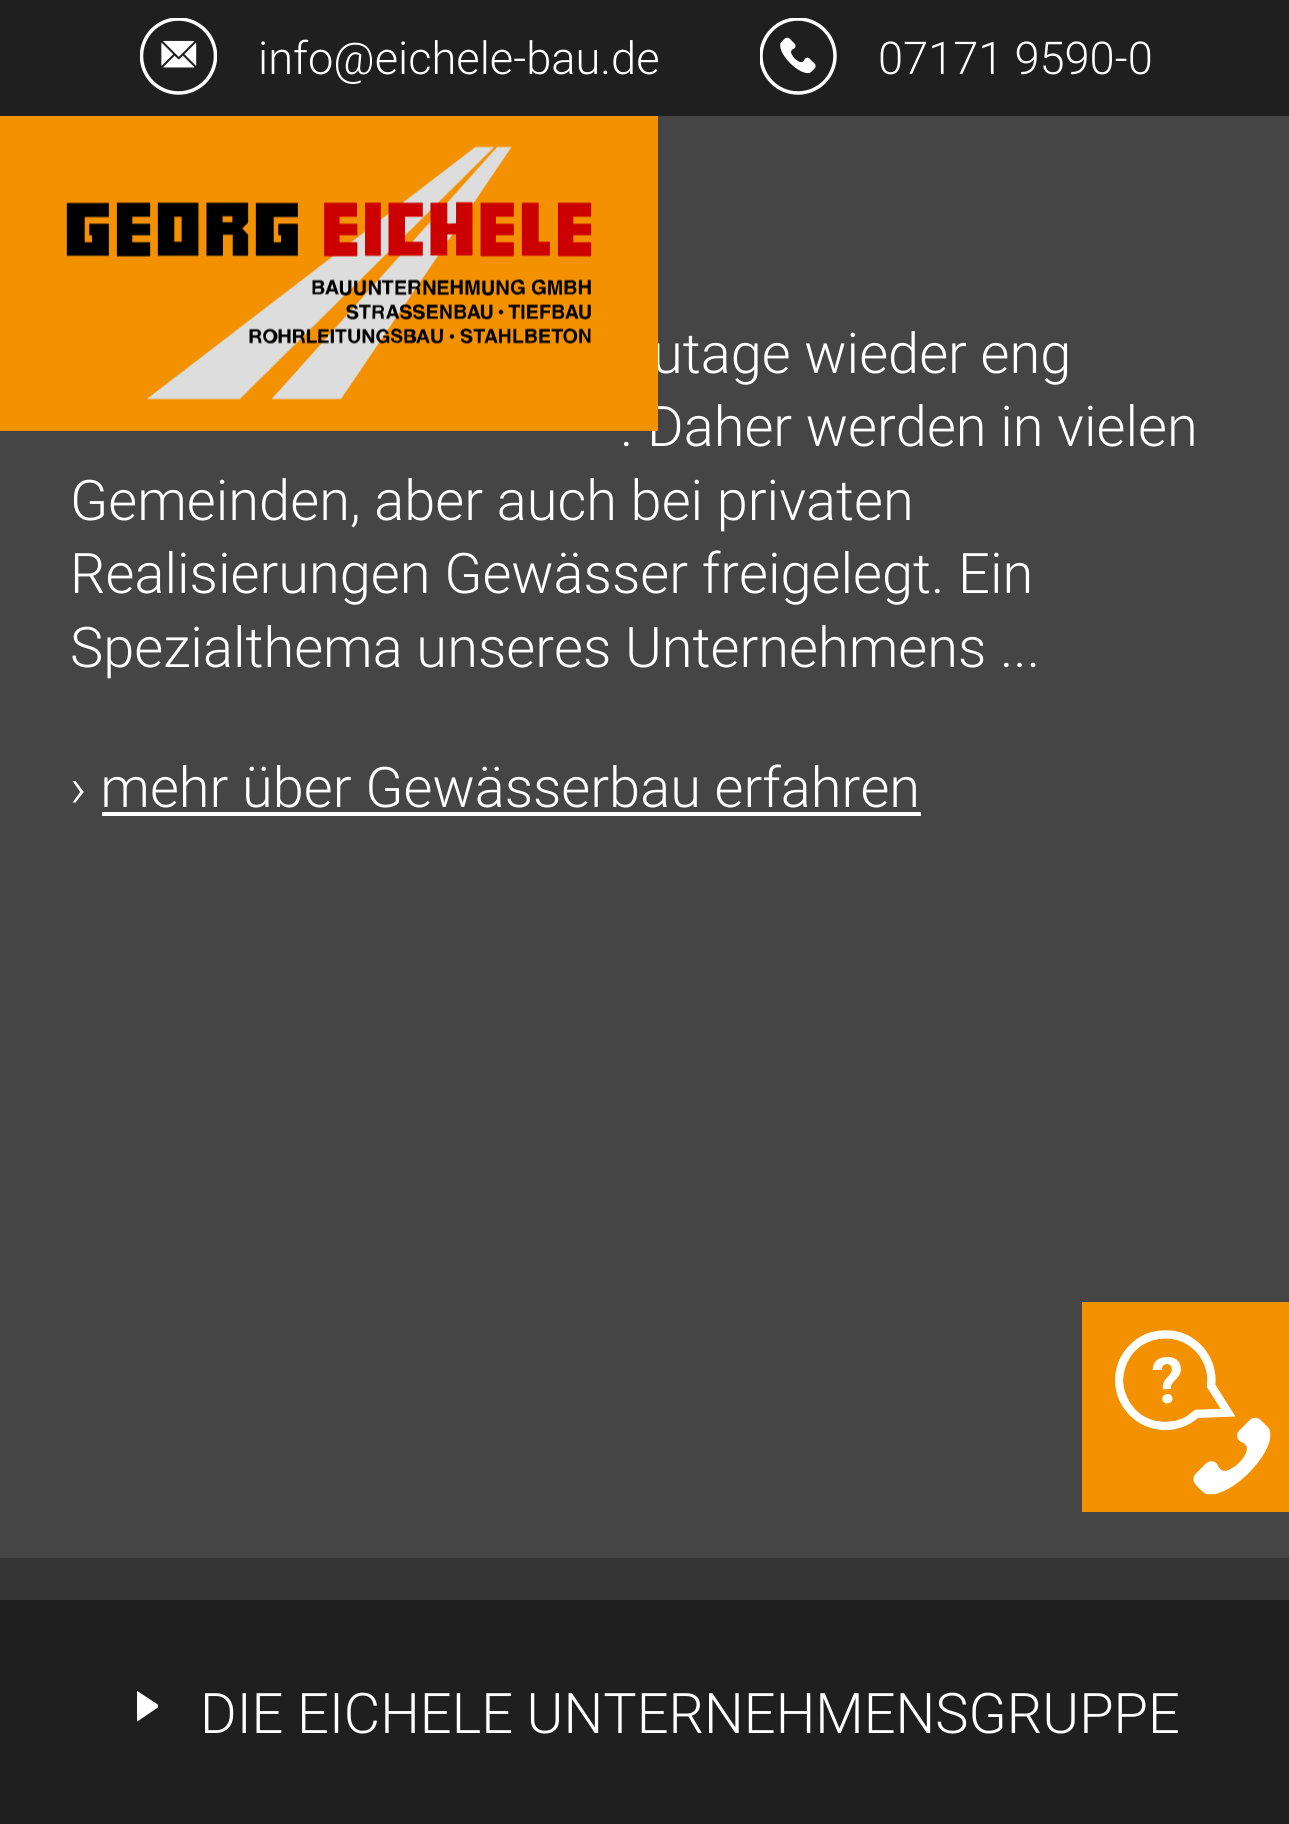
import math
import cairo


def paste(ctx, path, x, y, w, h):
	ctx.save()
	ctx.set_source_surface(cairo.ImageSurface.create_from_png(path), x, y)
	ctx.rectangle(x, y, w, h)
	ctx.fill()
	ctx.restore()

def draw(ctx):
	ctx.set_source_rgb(0.271, 0.271, 0.271)
	ctx.paint()
	ctx.set_source_rgb(0.122, 0.122, 0.122)
	ctx.rectangle(0, 0, 1289, 116)
	ctx.fill()
	paste(ctx, 'media/1.png', 140, 18, 77, 77)
	ctx.select_font_face('Roboto Light')
	ctx.set_font_size(45.25)
	ctx.set_source_rgb(1, 1, 1)
	ctx.move_to(258, 74)
	ctx.show_text('info@eichele-bau.de')
	paste(ctx, 'media/2.png', 760, 18, 77, 77)
	ctx.move_to(878, 74)
	ctx.show_text('07171 9590-0')
	ctx.set_font_size(56)
	ctx.move_to(652, 373)
	ctx.show_text('utage wieder eng')
	ctx.move_to(620, 446)
	ctx.show_text('. Daher werden in vielen')
	ctx.set_source_rgb(0.953, 0.569, 0)
	ctx.rectangle(0, 116, 658, 315)
	ctx.fill()
	paste(ctx, 'media/3.png', 66, 146, 526, 254)
	ctx.set_source_rgb(1, 1, 1)
	for x, y, s in [
		(70, 520, 'Gemeinden, aber auch bei privaten'),
		(70, 593, 'Realisierungen Gewässer freigelegt. Ein'),
		(70, 667, 'Spezialthema unseres Unternehmens ...'),
		(70, 807, '› mehr über Gewässerbau erfahren'),
	]:
		ctx.move_to(x, y)
		ctx.show_text(s)
	ctx.rectangle(102, 812, 819, 4)
	ctx.fill()
	ctx.set_source_rgb(0.953, 0.569, 0)
	ctx.rectangle(1082, 1302, 207, 210)
	ctx.fill()
	paste(ctx, 'media/4.png', 1115, 1330, 156, 165)
	ctx.set_source_rgb(0.212, 0.212, 0.212)
	ctx.rectangle(0, 1558, 1289, 42)
	ctx.fill()
	ctx.set_source_rgb(0.122, 0.122, 0.122)
	ctx.rectangle(0, 1600, 1289, 224)
	ctx.fill()
	ctx.save()
	ctx.rectangle(137, 1691, 21, 31)
	ctx.clip()
	ctx.set_source_rgb(1, 1, 1)
	ctx.new_path()
	ctx.move_to(160, 1706)
	ctx.line_to(136.5, 1722)
	ctx.line_to(136.5, 1690.5)
	ctx.close_path()
	ctx.fill()
	ctx.restore()
	ctx.set_source_rgb(1, 1, 1)
	ctx.move_to(200, 1733)
	ctx.show_text('DIE EICHELE UNTERNEHMENSGRUPPE')


surface = cairo.ImageSurface(cairo.FORMAT_RGB24, 1289, 1824)
ctx = cairo.Context(surface)
options = cairo.FontOptions()
options.set_hint_metrics(cairo.HINT_METRICS_OFF)
options.set_hint_style(cairo.HINT_STYLE_NONE)
ctx.set_font_options(options)
ctx.set_miter_limit(4)
draw(ctx)
surface.write_to_png('image.png')
